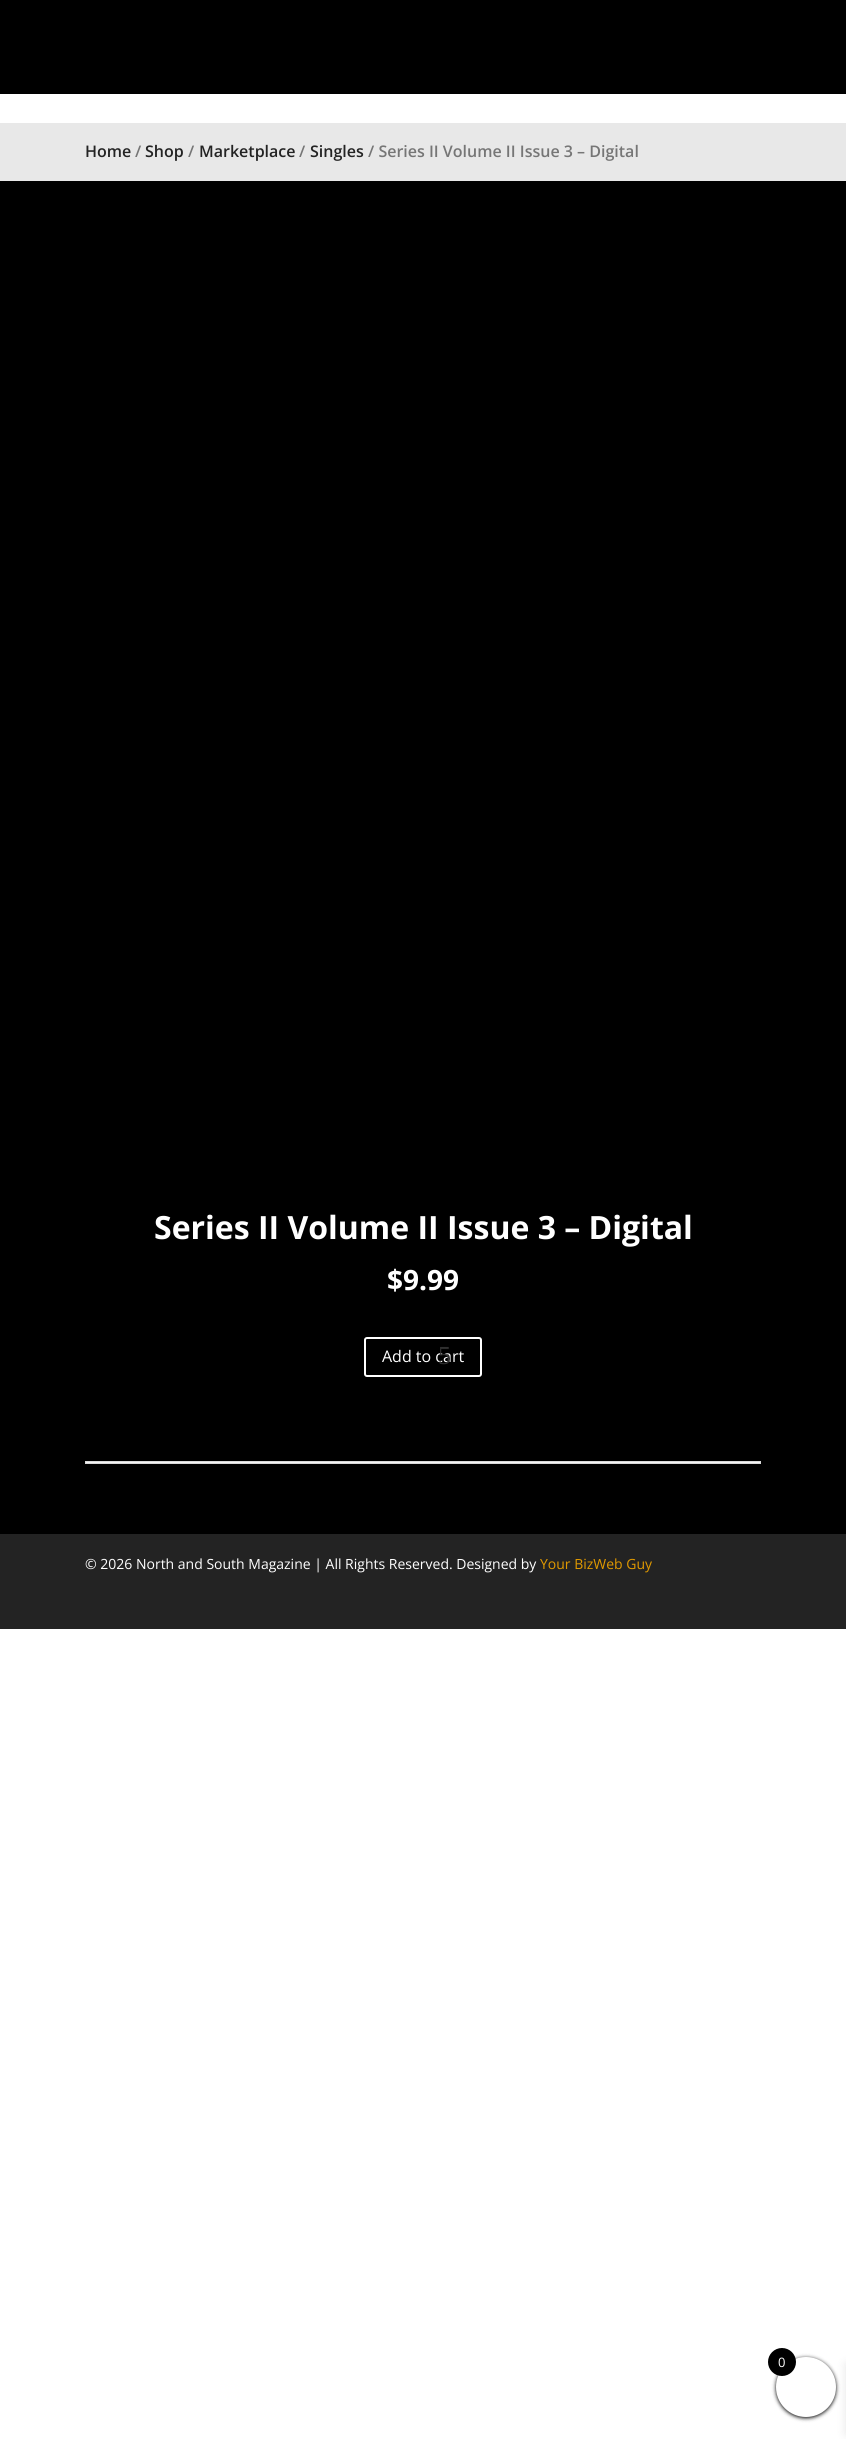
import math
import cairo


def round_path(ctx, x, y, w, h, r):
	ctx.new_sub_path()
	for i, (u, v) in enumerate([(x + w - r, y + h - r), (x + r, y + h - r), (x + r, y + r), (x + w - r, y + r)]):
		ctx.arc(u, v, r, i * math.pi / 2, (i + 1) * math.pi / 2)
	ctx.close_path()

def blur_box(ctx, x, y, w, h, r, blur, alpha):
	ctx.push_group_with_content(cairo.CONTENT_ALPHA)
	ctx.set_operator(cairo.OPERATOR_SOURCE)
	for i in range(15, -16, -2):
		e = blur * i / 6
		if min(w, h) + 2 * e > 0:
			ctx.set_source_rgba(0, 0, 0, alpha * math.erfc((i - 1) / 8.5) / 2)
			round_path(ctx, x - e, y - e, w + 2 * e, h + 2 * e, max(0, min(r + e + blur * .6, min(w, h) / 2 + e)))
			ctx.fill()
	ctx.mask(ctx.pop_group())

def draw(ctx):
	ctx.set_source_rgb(1, 1, 1)
	ctx.paint()
	ctx.set_source_rgb(0, 0, 0)
	ctx.rectangle(0, 0, 846, 94)
	ctx.fill()
	ctx.set_source_rgb(0.91, 0.91, 0.91)
	ctx.rectangle(0, 123, 846, 58)
	ctx.fill()
	ctx.select_font_face('Open Sans SemiBold')
	ctx.set_font_size(16)
	ctx.set_source_rgb(0.137, 0.137, 0.137)
	ctx.move_to(85, 157)
	ctx.show_text('Home')
	ctx.set_source_rgb(0.463, 0.463, 0.463)
	ctx.move_to(135, 157)
	ctx.show_text('/')
	ctx.set_source_rgb(0.137, 0.137, 0.137)
	ctx.move_to(145, 157)
	ctx.show_text('Shop')
	ctx.set_source_rgb(0.463, 0.463, 0.463)
	ctx.move_to(188, 157)
	ctx.show_text('/')
	ctx.set_source_rgb(0.137, 0.137, 0.137)
	ctx.move_to(199, 157)
	ctx.show_text('Marketplace')
	ctx.set_source_rgb(0.463, 0.463, 0.463)
	ctx.move_to(299, 157)
	ctx.show_text('/')
	ctx.set_source_rgb(0.137, 0.137, 0.137)
	ctx.move_to(310, 157)
	ctx.show_text('Singles')
	ctx.set_source_rgb(0.463, 0.463, 0.463)
	ctx.move_to(368, 157)
	ctx.show_text('/ Series II Volume II Issue 3 – Digital')
	ctx.set_source_rgb(0, 0, 0)
	ctx.rectangle(0, 181, 846, 1353)
	ctx.fill()
	ctx.select_font_face('Open Sans', cairo.FONT_SLANT_NORMAL, cairo.FONT_WEIGHT_BOLD)
	ctx.set_font_size(32)
	ctx.set_source_rgb(1, 1, 1)
	ctx.move_to(154, 1239)
	ctx.show_text('Series II Volume II Issue 3 – Digital')
	ctx.set_font_size(28)
	ctx.move_to(387, 1290)
	ctx.show_text('$9.99')
	round_path(ctx, 365, 1338, 116, 38, 2)
	ctx.stroke()
	ctx.select_font_face('Open Sans')
	ctx.set_font_size(16)
	ctx.move_to(382, 1362)
	ctx.show_text('Add to cart')
	ctx.select_font_face('Liberation Serif')
	ctx.set_font_size(26)
	ctx.set_source_rgb(0.188, 0.188, 0.188)
	ctx.move_to(438, 1364)
	ctx.show_text('5')
	ctx.rectangle(85.5, 1461.5, 675, 2)
	ctx.set_source_rgb(0.851, 0.851, 0.851)
	ctx.set_line_width(1)
	ctx.stroke()
	ctx.set_source_rgb(0.957, 0.957, 0.957)
	ctx.rectangle(86, 1462, 674, 1)
	ctx.fill()
	ctx.set_source_rgb(0.137, 0.137, 0.137)
	ctx.rectangle(0, 1534, 846, 95)
	ctx.fill()
	ctx.select_font_face('Open Sans')
	ctx.set_font_size(14)
	ctx.set_source_rgb(1, 1, 1)
	ctx.move_to(85, 1569)
	ctx.show_text('© 2026 North and South Magazine | All Rights Reserved. Designed by')
	ctx.set_source_rgb(0.878, 0.6, 0)
	ctx.move_to(540, 1569)
	ctx.show_text('Your BizWeb Guy')
	ctx.set_source_rgb(0, 0, 0)
	blur_box(ctx, 776, 2358, 60, 60, 30, 2, 1)
	blur_box(ctx, 846, 2364, 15, 70, 0, 5, 0.1)
	ctx.set_source_rgb(1, 1, 1)
	ctx.arc(806, 2387, 30, 0, 2 * math.pi)
	ctx.fill()
	ctx.set_source_rgb(0, 0, 0)
	ctx.arc(782, 2362, 14, 0, 2 * math.pi)
	ctx.fill()
	ctx.set_font_size(13)
	ctx.set_source_rgb(1, 1, 1)
	ctx.move_to(778, 2367)
	ctx.show_text('0')


surface = cairo.ImageSurface(cairo.FORMAT_RGB24, 846, 2439)
ctx = cairo.Context(surface)
options = cairo.FontOptions()
options.set_hint_metrics(cairo.HINT_METRICS_OFF)
options.set_hint_style(cairo.HINT_STYLE_NONE)
ctx.set_font_options(options)
ctx.set_miter_limit(4)
draw(ctx)
surface.write_to_png('image.png')
